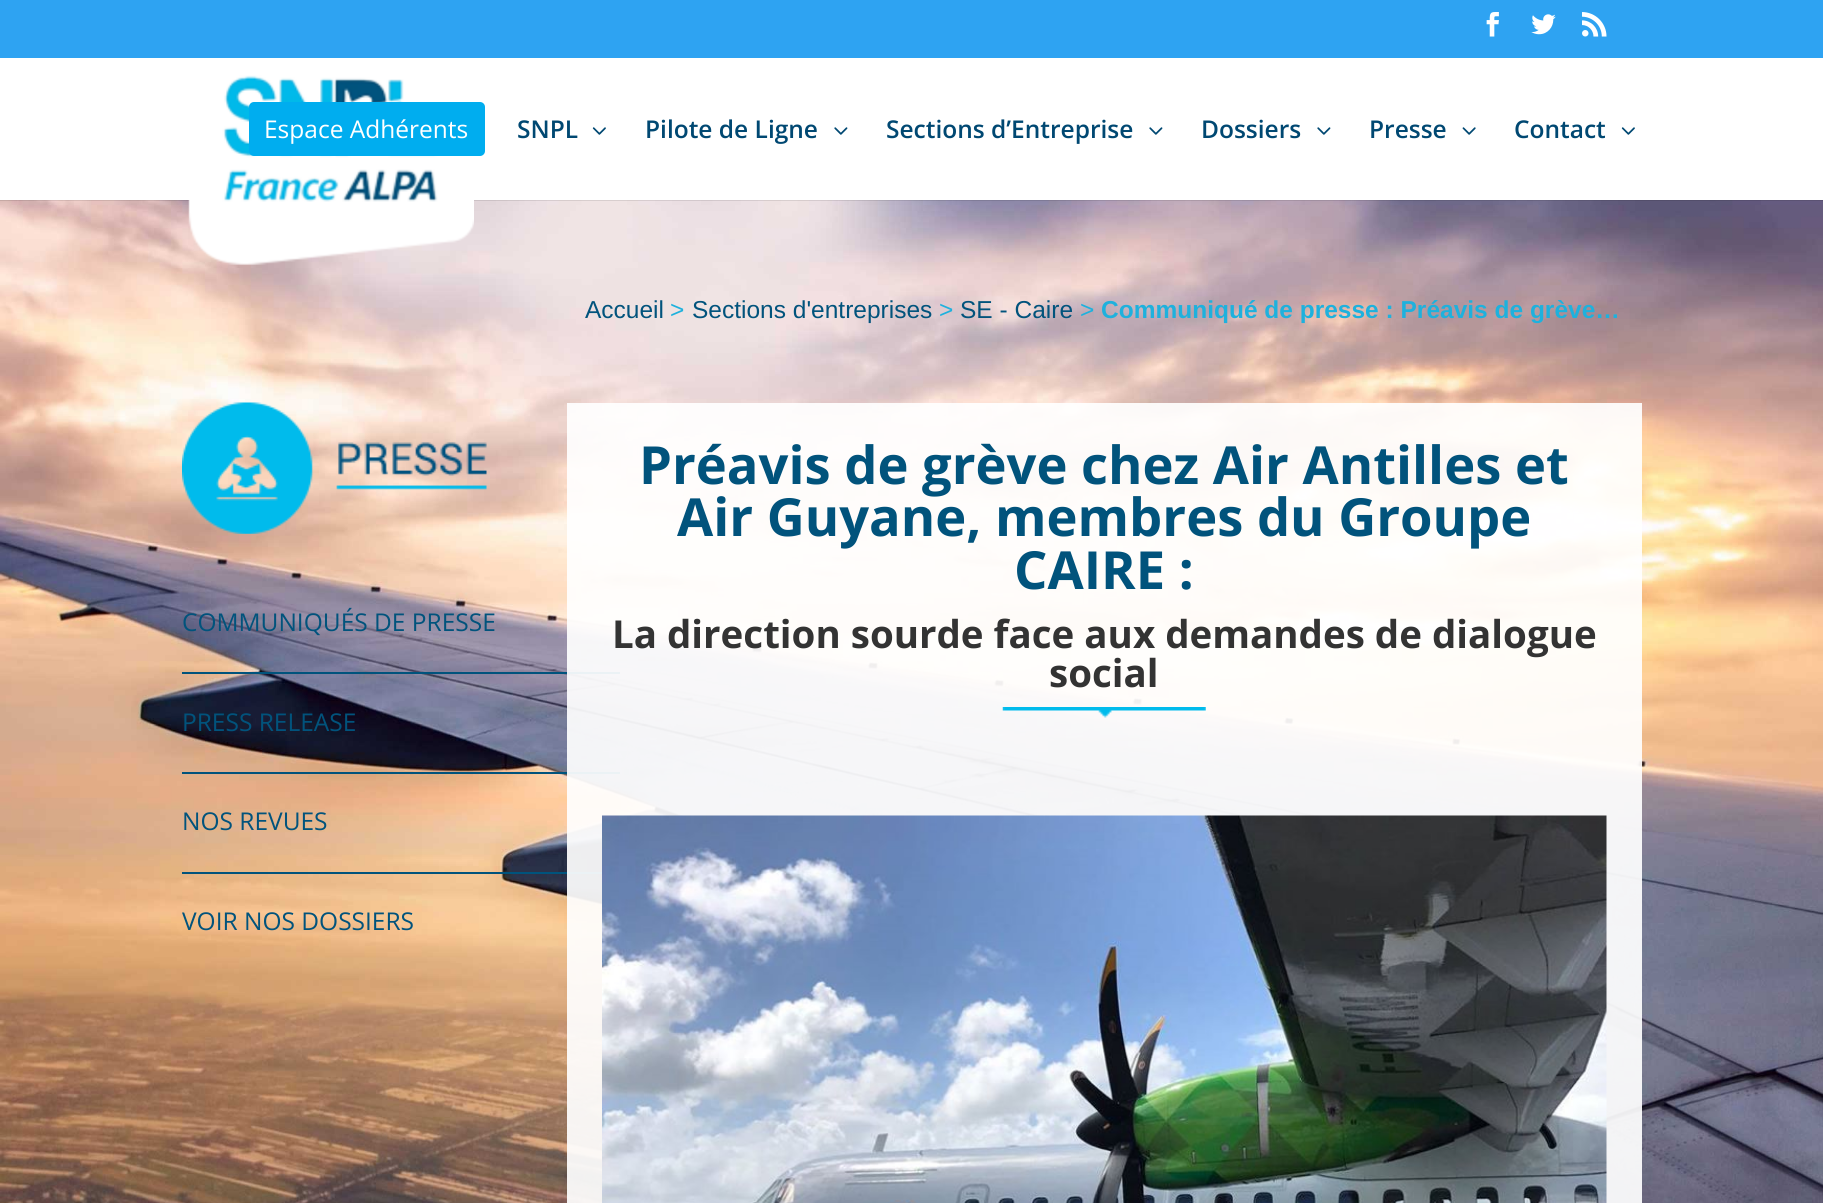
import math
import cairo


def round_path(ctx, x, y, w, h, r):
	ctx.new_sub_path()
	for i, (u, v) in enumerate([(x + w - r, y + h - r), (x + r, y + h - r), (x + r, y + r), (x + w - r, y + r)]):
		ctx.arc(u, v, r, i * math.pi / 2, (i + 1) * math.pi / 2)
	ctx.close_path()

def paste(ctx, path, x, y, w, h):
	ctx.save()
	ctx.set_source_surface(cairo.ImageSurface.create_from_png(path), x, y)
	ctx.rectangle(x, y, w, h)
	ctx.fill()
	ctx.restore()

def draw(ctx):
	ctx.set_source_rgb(1, 1, 1)
	ctx.paint()
	ctx.set_source_rgb(0.18, 0.639, 0.949)
	ctx.rectangle(0, 0, 1823, 58)
	ctx.fill()
	paste(ctx, 'media/1.png', 1486, 12, 13, 25)
	paste(ctx, 'media/2.png', 1531, 14, 25, 21)
	paste(ctx, 'media/3.png', 1582, 12, 25, 25)
	paste(ctx, 'media/8.png', 0, 200, 1823, 1003)
	ctx.set_source_rgba(0, 0, 0, 0.1)
	ctx.new_path()
	ctx.move_to(0, 200)
	ctx.line_to(0, 201)
	ctx.line_to(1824, 201)
	ctx.line_to(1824, 60)
	ctx.line_to(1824, 200)
	ctx.close_path()
	ctx.fill()
	paste(ctx, 'media/4.png', 188, 75, 286, 190)
	ctx.set_source_rgb(0, 0.678, 0.937)
	round_path(ctx, 249, 102, 236, 54, 5)
	ctx.fill()
	ctx.select_font_face('Open Sans')
	ctx.set_font_size(24.5)
	ctx.set_source_rgb(1, 1, 1)
	ctx.move_to(264, 138)
	ctx.show_text('Espace Adhérents')
	ctx.select_font_face('Open Sans SemiBold')
	ctx.set_source_rgb(0, 0.282, 0.447)
	ctx.move_to(517, 138)
	ctx.show_text('SNPL')
	paste(ctx, 'media/5.png', 592, 127, 14, 8)
	ctx.move_to(645, 138)
	ctx.show_text('Pilote de Ligne')
	paste(ctx, 'media/6.png', 834, 127, 14, 8)
	ctx.move_to(886, 138)
	ctx.show_text('Sections d’Entreprise')
	paste(ctx, 'media/6.png', 1149, 127, 14, 8)
	ctx.move_to(1201, 138)
	ctx.show_text('Dossiers')
	paste(ctx, 'media/6.png', 1317, 127, 14, 8)
	ctx.move_to(1369, 138)
	ctx.show_text('Presse')
	paste(ctx, 'media/7.png', 1462, 127, 14, 8)
	ctx.move_to(1514, 138)
	ctx.show_text('Contact')
	paste(ctx, 'media/5.png', 1621, 127, 14, 8)
	ctx.select_font_face('Liberation Sans')
	ctx.set_source_rgb(0.004, 0.325, 0.486)
	ctx.move_to(585, 318)
	ctx.show_text('Accueil')
	ctx.set_source_rgb(0.118, 0.694, 0.867)
	ctx.move_to(670, 318)
	ctx.show_text('>')
	ctx.set_source_rgb(0.004, 0.325, 0.486)
	ctx.move_to(692, 318)
	ctx.show_text('Sections d\'entreprises')
	ctx.set_source_rgb(0.118, 0.694, 0.867)
	ctx.move_to(939, 318)
	ctx.show_text('>')
	ctx.set_source_rgb(0.004, 0.325, 0.486)
	ctx.move_to(960, 318)
	ctx.show_text('SE - Caire')
	ctx.set_source_rgb(0.118, 0.694, 0.867)
	ctx.move_to(1080, 318)
	ctx.show_text('>')
	ctx.select_font_face('Liberation Sans', cairo.FONT_SLANT_NORMAL, cairo.FONT_WEIGHT_BOLD)
	ctx.move_to(1101, 318)
	ctx.show_text('Communiqué de presse : Préavis de grève…')
	ctx.set_source_rgb(0, 0.325, 0.486)
	ctx.rectangle(182, 672, 438, 2)
	ctx.rectangle(182, 772, 438, 2)
	ctx.rectangle(182, 872, 420, 2)
	ctx.fill()
	ctx.set_source_rgba(1, 1, 1, 0.92)
	ctx.rectangle(567, 403, 1075, 800)
	ctx.fill()
	ctx.select_font_face('Open Sans', cairo.FONT_SLANT_NORMAL, cairo.FONT_WEIGHT_BOLD)
	ctx.set_font_size(52.5)
	ctx.set_source_rgb(0.004, 0.325, 0.486)
	for x, y, s in [
		(639, 484, 'Préavis de grève chez Air Antilles et'),
		(677, 536, 'Air Guyane, membres du Groupe'),
		(1014, 589, 'CAIRE :'),
	]:
		ctx.move_to(x, y)
		ctx.show_text(s)
	ctx.set_font_size(38.5)
	ctx.set_source_rgb(0.2, 0.2, 0.2)
	ctx.move_to(612, 648)
	ctx.show_text('La direction sourde face aux demandes de dialogue')
	ctx.move_to(1049, 687)
	ctx.show_text('social')
	paste(ctx, 'media/9.png', 1002, 707, 204, 11)
	paste(ctx, 'media/10.png', 602, 815, 1005, 388)
	paste(ctx, 'media/11.png', 182, 402, 305, 132)
	ctx.select_font_face('Open Sans')
	ctx.set_font_size(24.5)
	ctx.set_source_rgb(0.004, 0.325, 0.486)
	for x, y, s in [
		(182, 631, 'COMMUNIQUÉS DE PRESSE'),
		(182, 731, 'PRESS RELEASE'),
		(182, 830, 'NOS REVUES'),
		(182, 930, 'VOIR NOS DOSSIERS'),
	]:
		ctx.move_to(x, y)
		ctx.show_text(s)


surface = cairo.ImageSurface(cairo.FORMAT_RGB24, 1823, 1203)
ctx = cairo.Context(surface)
options = cairo.FontOptions()
options.set_hint_metrics(cairo.HINT_METRICS_OFF)
options.set_hint_style(cairo.HINT_STYLE_NONE)
ctx.set_font_options(options)
ctx.set_miter_limit(4)
draw(ctx)
surface.write_to_png('image.png')
